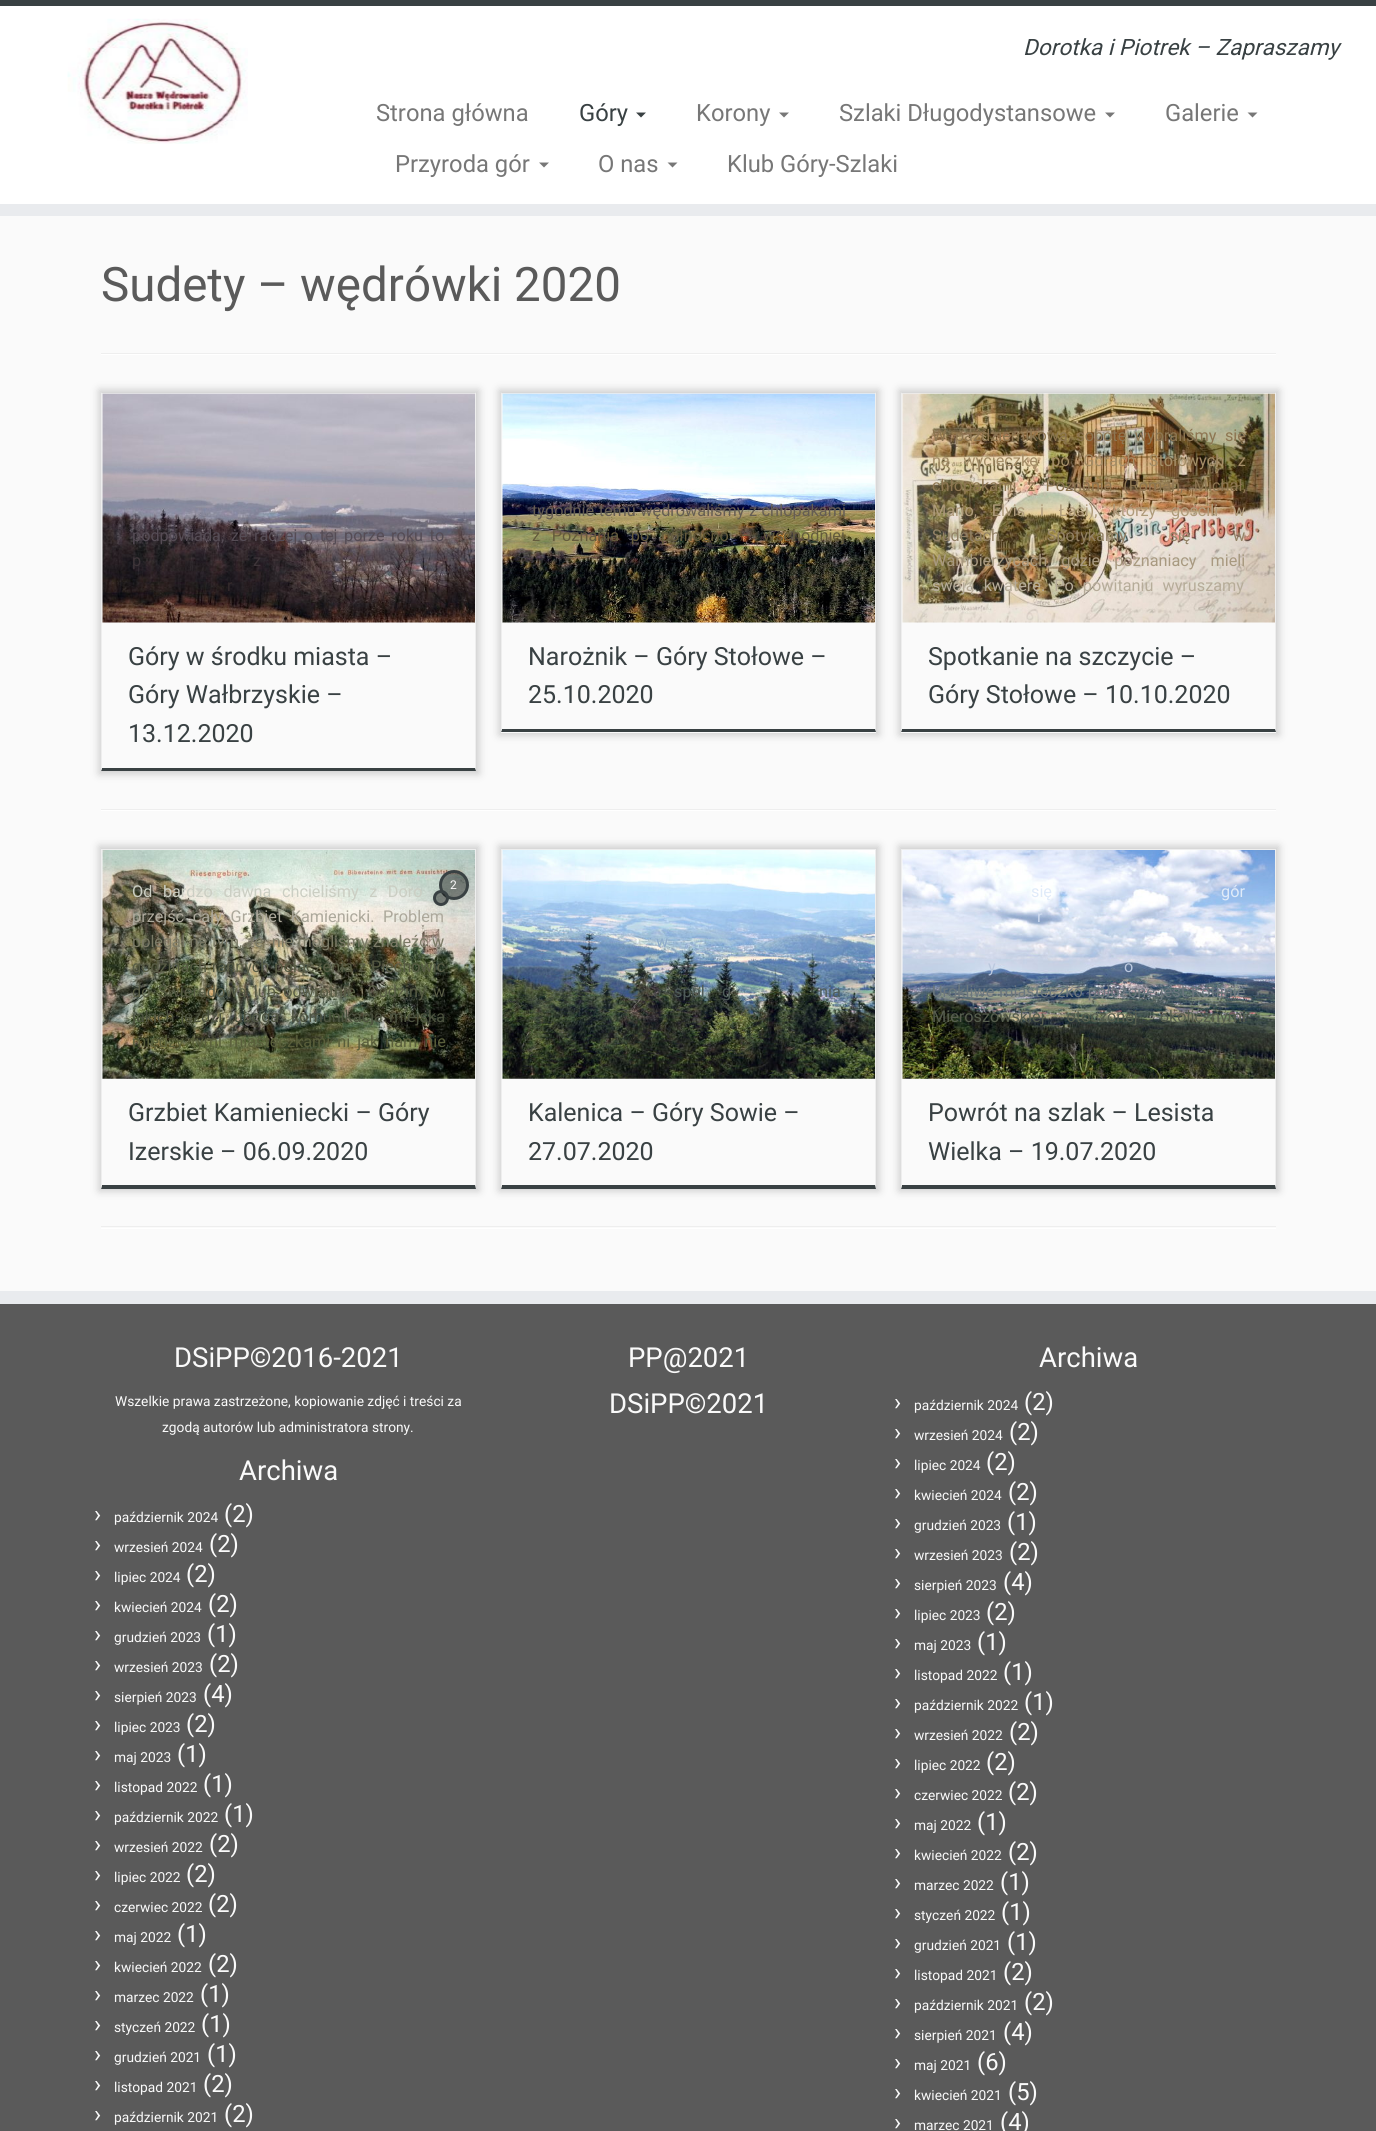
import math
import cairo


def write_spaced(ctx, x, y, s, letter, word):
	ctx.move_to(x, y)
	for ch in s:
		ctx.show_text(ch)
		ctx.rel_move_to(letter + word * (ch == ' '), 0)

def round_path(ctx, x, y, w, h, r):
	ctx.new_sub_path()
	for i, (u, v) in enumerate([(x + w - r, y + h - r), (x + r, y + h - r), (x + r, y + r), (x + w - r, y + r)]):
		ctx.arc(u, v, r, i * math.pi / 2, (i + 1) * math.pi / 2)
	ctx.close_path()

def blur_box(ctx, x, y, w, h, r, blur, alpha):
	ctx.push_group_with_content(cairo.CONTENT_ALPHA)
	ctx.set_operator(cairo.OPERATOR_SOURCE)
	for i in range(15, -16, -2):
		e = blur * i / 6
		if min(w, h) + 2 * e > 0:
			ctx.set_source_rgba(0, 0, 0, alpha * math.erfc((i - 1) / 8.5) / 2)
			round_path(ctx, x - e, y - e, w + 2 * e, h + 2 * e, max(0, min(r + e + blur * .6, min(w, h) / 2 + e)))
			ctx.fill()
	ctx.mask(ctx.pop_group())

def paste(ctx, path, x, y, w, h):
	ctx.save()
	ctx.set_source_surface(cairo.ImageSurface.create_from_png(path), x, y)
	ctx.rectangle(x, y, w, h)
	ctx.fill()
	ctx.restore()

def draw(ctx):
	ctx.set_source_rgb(0.98, 0.98, 0.98)
	ctx.paint()
	ctx.set_source_rgb(1, 1, 1)
	ctx.rectangle(0, 6, 1376, 198)
	ctx.fill()
	ctx.set_source_rgb(0.224, 0.255, 0.263)
	ctx.rectangle(0, 0, 1376, 6)
	ctx.fill()
	ctx.set_source_rgb(0.914, 0.918, 0.933)
	ctx.rectangle(0, 204, 1376, 12)
	ctx.fill()
	paste(ctx, 'media/1.png', 67, 18, 181, 126)
	ctx.select_font_face('Roboto', cairo.FONT_SLANT_ITALIC)
	ctx.set_font_size(22.5)
	ctx.set_source_rgb(0.224, 0.255, 0.263)
	ctx.move_to(1023, 55)
	ctx.show_text('Dorotka i Piotrek – Zapraszamy')
	ctx.select_font_face('Roboto')
	ctx.set_font_size(23.75)
	ctx.set_source_rgb(0.467, 0.467, 0.467)
	ctx.move_to(376, 121)
	ctx.show_text('Strona główna')
	ctx.set_source_rgb(0.224, 0.255, 0.263)
	ctx.move_to(579, 121)
	ctx.show_text('Góry')
	ctx.new_path()
	ctx.move_to(636, 112.5)
	ctx.line_to(646, 112.5)
	ctx.line_to(641, 117.5)
	ctx.close_path()
	ctx.fill()
	ctx.set_source_rgb(0.467, 0.467, 0.467)
	ctx.move_to(696, 121)
	ctx.show_text('Korony')
	ctx.new_path()
	ctx.move_to(779, 112.5)
	ctx.line_to(789, 112.5)
	ctx.line_to(784, 117.5)
	ctx.close_path()
	ctx.fill()
	ctx.move_to(839, 121)
	ctx.show_text('Szlaki Długodystansowe')
	ctx.new_path()
	ctx.move_to(1105, 112.5)
	ctx.line_to(1115, 112.5)
	ctx.line_to(1110, 117.5)
	ctx.close_path()
	ctx.fill()
	ctx.move_to(1165, 121)
	ctx.show_text('Galerie')
	ctx.new_path()
	ctx.move_to(1247.5, 112.5)
	ctx.line_to(1257.5, 112.5)
	ctx.line_to(1252.5, 117.5)
	ctx.close_path()
	ctx.fill()
	ctx.move_to(395, 172)
	ctx.show_text('Przyroda gór')
	ctx.new_path()
	ctx.move_to(539, 162.5)
	ctx.line_to(549, 162.5)
	ctx.line_to(544, 167.5)
	ctx.close_path()
	ctx.fill()
	ctx.move_to(598, 172)
	ctx.show_text('O nas')
	ctx.new_path()
	ctx.move_to(667.5, 162.5)
	ctx.line_to(677.5, 162.5)
	ctx.line_to(672.5, 167.5)
	ctx.close_path()
	ctx.fill()
	ctx.move_to(727, 172)
	ctx.show_text('Klub Góry-Szlaki')
	ctx.set_font_size(47.5)
	ctx.set_source_rgb(0.353, 0.353, 0.353)
	ctx.move_to(101, 301)
	ctx.show_text('Sudety – wędrówki 2020')
	ctx.set_source_rgb(0.933, 0.933, 0.933)
	ctx.rectangle(101, 353, 1175, 1)
	ctx.fill()
	ctx.set_source_rgb(1, 1, 1)
	ctx.rectangle(101, 354, 1175, 1)
	ctx.fill()
	ctx.save()
	ctx.set_fill_rule(cairo.FILL_RULE_EVEN_ODD)
	ctx.new_path()
	ctx.move_to(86, 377)
	ctx.line_to(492, 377)
	ctx.line_to(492, 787)
	ctx.line_to(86, 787)
	ctx.close_path()
	ctx.move_to(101, 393)
	ctx.line_to(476, 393)
	ctx.line_to(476, 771)
	ctx.line_to(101, 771)
	ctx.close_path()
	ctx.clip()
	ctx.set_source_rgb(0.8, 0.8, 0.8)
	blur_box(ctx, 99, 390, 380, 384, 0, 4, 1)
	ctx.restore()
	ctx.set_source_rgb(0.933, 0.933, 0.933)
	ctx.rectangle(101, 393, 375, 1)
	ctx.fill()
	ctx.new_path()
	ctx.move_to(476, 392)
	ctx.line_to(476, 771)
	ctx.line_to(475, 768)
	ctx.line_to(475, 394)
	ctx.close_path()
	ctx.fill()
	ctx.set_source_rgb(0.224, 0.255, 0.263)
	ctx.new_path()
	ctx.move_to(476, 771)
	ctx.line_to(101, 771)
	ctx.line_to(102, 768)
	ctx.line_to(475, 768)
	ctx.close_path()
	ctx.fill()
	ctx.set_source_rgb(0.933, 0.933, 0.933)
	ctx.new_path()
	ctx.move_to(101, 771)
	ctx.line_to(101, 392)
	ctx.line_to(102, 394)
	ctx.line_to(102, 768)
	ctx.close_path()
	ctx.fill()
	paste(ctx, 'media/2.png', 102, 393, 373, 230)
	ctx.set_font_size(16.25)
	ctx.set_source_rgb(0.333, 0.298, 0.333)
	write_spaced(ctx, 132, 541, 'podpowiada, że raczej o tej porze roku to', 0, 2.5)
	ctx.set_source_rgb(0.243, 0.208, 0.224)
	for x, y, s in [
		(132, 566, 'p'),
		(253, 566, 'z'),
		(357, 566, '.'),
		(440, 566, '.'),
	]:
		write_spaced(ctx, x, y, s, 0, 6)
	ctx.set_source_rgb(0.204, 0.165, 0.169)
	write_spaced(ctx, 227, 591, 'r', 0, 2)
	ctx.set_font_size(25)
	ctx.set_source_rgb(0.224, 0.255, 0.263)
	for x, y, s in [
		(128, 665, 'Góry w środku miasta –'),
		(128, 703, 'Góry Wałbrzyskie –'),
		(128, 742, '13.12.2020'),
	]:
		ctx.move_to(x, y)
		ctx.show_text(s)
	ctx.save()
	ctx.set_fill_rule(cairo.FILL_RULE_EVEN_ODD)
	ctx.new_path()
	ctx.move_to(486, 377)
	ctx.line_to(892, 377)
	ctx.line_to(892, 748)
	ctx.line_to(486, 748)
	ctx.close_path()
	ctx.move_to(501, 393)
	ctx.line_to(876, 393)
	ctx.line_to(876, 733)
	ctx.line_to(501, 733)
	ctx.close_path()
	ctx.clip()
	ctx.set_source_rgb(0.8, 0.8, 0.8)
	blur_box(ctx, 499, 390, 380, 345, 0, 4, 1)
	ctx.restore()
	ctx.set_source_rgb(0.933, 0.933, 0.933)
	ctx.rectangle(501, 393, 375, 1)
	ctx.fill()
	ctx.new_path()
	ctx.move_to(876, 392)
	ctx.line_to(876, 732)
	ctx.line_to(875, 729)
	ctx.line_to(875, 394)
	ctx.close_path()
	ctx.fill()
	ctx.set_source_rgb(0.224, 0.255, 0.263)
	ctx.new_path()
	ctx.move_to(876, 732)
	ctx.line_to(501, 732)
	ctx.line_to(502, 729)
	ctx.line_to(875, 729)
	ctx.close_path()
	ctx.fill()
	ctx.set_source_rgb(0.933, 0.933, 0.933)
	ctx.new_path()
	ctx.move_to(501, 732)
	ctx.line_to(501, 392)
	ctx.line_to(502, 394)
	ctx.line_to(502, 729)
	ctx.close_path()
	ctx.fill()
	paste(ctx, 'media/3.png', 502, 393, 373, 230)
	ctx.set_font_size(16.25)
	ctx.set_source_rgb(0.396, 0.365, 0.325)
	write_spaced(ctx, 532, 516, 'tygodnie temu wędrowaliśmy z chłopakami', 0, 0.5)
	ctx.set_source_rgb(0.392, 0.357, 0.239)
	write_spaced(ctx, 532, 541, 'z Poznania po północno – wschodniej', 0, 7.75)
	ctx.set_source_rgb(0.125, 0.129, 0.106)
	write_spaced(ctx, 641, 591, 'i', 0, 1)
	ctx.set_font_size(25)
	ctx.set_source_rgb(0.224, 0.255, 0.263)
	ctx.move_to(528, 665)
	ctx.show_text('Narożnik – Góry Stołowe –')
	ctx.move_to(528, 703)
	ctx.show_text('25.10.2020')
	ctx.save()
	ctx.set_fill_rule(cairo.FILL_RULE_EVEN_ODD)
	ctx.new_path()
	ctx.move_to(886, 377)
	ctx.line_to(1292, 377)
	ctx.line_to(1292, 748)
	ctx.line_to(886, 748)
	ctx.close_path()
	ctx.move_to(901, 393)
	ctx.line_to(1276, 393)
	ctx.line_to(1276, 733)
	ctx.line_to(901, 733)
	ctx.close_path()
	ctx.clip()
	ctx.set_source_rgb(0.8, 0.8, 0.8)
	blur_box(ctx, 899, 390, 380, 345, 0, 4, 1)
	ctx.restore()
	ctx.set_source_rgb(0.933, 0.933, 0.933)
	ctx.rectangle(901, 393, 375, 1)
	ctx.fill()
	ctx.new_path()
	ctx.move_to(1276, 392)
	ctx.line_to(1276, 732)
	ctx.line_to(1275, 729)
	ctx.line_to(1275, 394)
	ctx.close_path()
	ctx.fill()
	ctx.set_source_rgb(0.224, 0.255, 0.263)
	ctx.new_path()
	ctx.move_to(1276, 732)
	ctx.line_to(901, 732)
	ctx.line_to(902, 729)
	ctx.line_to(1275, 729)
	ctx.close_path()
	ctx.fill()
	ctx.set_source_rgb(0.933, 0.933, 0.933)
	ctx.new_path()
	ctx.move_to(901, 732)
	ctx.line_to(901, 392)
	ctx.line_to(902, 394)
	ctx.line_to(902, 729)
	ctx.close_path()
	ctx.fill()
	paste(ctx, 'media/4.png', 902, 393, 373, 230)
	ctx.set_font_size(16.25)
	ctx.set_source_rgb(0.553, 0.463, 0.322)
	write_spaced(ctx, 932, 441, 'W październikową sobotę wybraliśmy się', 0, 4.5)
	ctx.set_source_rgb(0.643, 0.553, 0.404)
	write_spaced(ctx, 932, 466, 'na wycieczkę po Górach Stołowych z', 0, 9.5)
	ctx.set_source_rgb(0.553, 0.463, 0.322)
	write_spaced(ctx, 932, 491, 'chłopakami z Poznania (Roman, Michał,', 0, 6.5)
	ctx.set_source_rgb(0.686, 0.608, 0.482)
	write_spaced(ctx, 932, 516, 'Mario, Elvis i Łasi), którzy gościli w', 0, 10.75)
	ctx.set_source_rgb(0.573, 0.506, 0.396)
	write_spaced(ctx, 932, 541, 'Sudetach. Spotykamy się w', 0, 38.5)
	ctx.set_source_rgb(0.659, 0.6, 0.502)
	write_spaced(ctx, 932, 566, 'Wambierzycach gdzie poznaniacy mieli', 0, 10)
	ctx.set_source_rgb(0.714, 0.675, 0.6)
	write_spaced(ctx, 932, 591, 'swoją kwaterę. Po powitaniu wyruszamy', 0, 5)
	ctx.set_font_size(25)
	ctx.set_source_rgb(0.224, 0.255, 0.263)
	ctx.move_to(928, 665)
	ctx.show_text('Spotkanie na szczycie –')
	ctx.move_to(928, 703)
	ctx.show_text('Góry Stołowe – 10.10.2020')
	ctx.set_source_rgb(0.933, 0.933, 0.933)
	ctx.rectangle(101, 809, 1175, 1)
	ctx.fill()
	ctx.set_source_rgb(1, 1, 1)
	ctx.rectangle(101, 810, 1175, 1)
	ctx.fill()
	ctx.save()
	ctx.set_fill_rule(cairo.FILL_RULE_EVEN_ODD)
	ctx.new_path()
	ctx.move_to(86, 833)
	ctx.line_to(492, 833)
	ctx.line_to(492, 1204)
	ctx.line_to(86, 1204)
	ctx.close_path()
	ctx.move_to(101, 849)
	ctx.line_to(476, 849)
	ctx.line_to(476, 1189)
	ctx.line_to(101, 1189)
	ctx.close_path()
	ctx.clip()
	ctx.set_source_rgb(0.8, 0.8, 0.8)
	blur_box(ctx, 99, 846, 380, 345, 0, 4, 1)
	ctx.restore()
	ctx.set_source_rgb(0.933, 0.933, 0.933)
	ctx.rectangle(101, 849, 375, 1)
	ctx.fill()
	ctx.new_path()
	ctx.move_to(476, 849)
	ctx.line_to(476, 1189)
	ctx.line_to(475, 1185)
	ctx.line_to(475, 850)
	ctx.close_path()
	ctx.fill()
	ctx.set_source_rgb(0.224, 0.255, 0.263)
	ctx.new_path()
	ctx.move_to(476, 1189)
	ctx.line_to(101, 1189)
	ctx.line_to(102, 1185)
	ctx.line_to(475, 1185)
	ctx.close_path()
	ctx.fill()
	ctx.set_source_rgb(0.933, 0.933, 0.933)
	ctx.new_path()
	ctx.move_to(101, 1189)
	ctx.line_to(101, 849)
	ctx.line_to(102, 850)
	ctx.line_to(102, 1185)
	ctx.close_path()
	ctx.fill()
	paste(ctx, 'media/5.png', 102, 850, 373, 229)
	ctx.set_font_size(16.25)
	ctx.set_source_rgb(0.796, 0.808, 0.765)
	write_spaced(ctx, 132, 897, 'Od bardzo dawna chcieliśmy z Doro', 0, 6.5)
	ctx.set_source_rgb(0.675, 0.659, 0.608)
	write_spaced(ctx, 132, 922, 'przejść cały Grzbiet Kamienicki. Problem', 0, 4.5)
	ctx.set_source_rgb(0.482, 0.478, 0.4)
	write_spaced(ctx, 132, 947, 'polegał na tym, że  nie mogliśmy znaleźć w', 0, 0.25)
	ctx.set_source_rgb(0.345, 0.361, 0.271)
	write_spaced(ctx, 132, 972, 'godzinach rannych połączenia z Piechowic', 0, 1)
	write_spaced(ctx, 132, 997, 'do Świeradowa lub odwrotnie. Godziny w', 0, 3.5)
	ctx.set_source_rgb(0.302, 0.325, 0.251)
	write_spaced(ctx, 132, 1022, 'jakich jeździ „uboga” komunikacja miejska', 0, 2)
	ctx.set_source_rgb(0.349, 0.369, 0.231)
	write_spaced(ctx, 132, 1047, 'między tymi miasteczkami ni jak nam nie', 0, 3)
	ctx.set_source_rgba(0, 0, 0, 0.4)
	ctx.new_path()
	ctx.arc(454, 885, 13.5, 0, 2 * math.pi)
	ctx.fill_preserve()
	ctx.set_source_rgb(0.224, 0.255, 0.263)
	ctx.set_line_width(3)
	ctx.stroke()
	ctx.set_font_size(12)
	ctx.set_source_rgb(0.98, 0.98, 0.98)
	ctx.move_to(450, 889)
	ctx.show_text('2')
	ctx.set_source_rgba(0, 0, 0, 0.4)
	ctx.new_path()
	ctx.arc(441, 898, 6.5, 0, 2 * math.pi)
	ctx.fill_preserve()
	ctx.set_source_rgb(0.224, 0.255, 0.263)
	ctx.stroke()
	ctx.set_font_size(25)
	ctx.move_to(128, 1121)
	ctx.show_text('Grzbiet Kamieniecki – Góry')
	ctx.move_to(128, 1160)
	ctx.show_text('Izerskie – 06.09.2020')
	ctx.save()
	ctx.set_fill_rule(cairo.FILL_RULE_EVEN_ODD)
	ctx.new_path()
	ctx.move_to(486, 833)
	ctx.line_to(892, 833)
	ctx.line_to(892, 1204)
	ctx.line_to(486, 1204)
	ctx.close_path()
	ctx.move_to(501, 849)
	ctx.line_to(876, 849)
	ctx.line_to(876, 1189)
	ctx.line_to(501, 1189)
	ctx.close_path()
	ctx.clip()
	ctx.set_source_rgb(0.8, 0.8, 0.8)
	blur_box(ctx, 499, 846, 380, 345, 0, 4, 1)
	ctx.restore()
	ctx.set_source_rgb(0.933, 0.933, 0.933)
	ctx.rectangle(501, 849, 375, 1)
	ctx.fill()
	ctx.new_path()
	ctx.move_to(876, 849)
	ctx.line_to(876, 1189)
	ctx.line_to(875, 1185)
	ctx.line_to(875, 850)
	ctx.close_path()
	ctx.fill()
	ctx.set_source_rgb(0.224, 0.255, 0.263)
	ctx.new_path()
	ctx.move_to(876, 1189)
	ctx.line_to(501, 1189)
	ctx.line_to(502, 1185)
	ctx.line_to(875, 1185)
	ctx.close_path()
	ctx.fill()
	ctx.set_source_rgb(0.933, 0.933, 0.933)
	ctx.new_path()
	ctx.move_to(501, 1189)
	ctx.line_to(501, 849)
	ctx.line_to(502, 850)
	ctx.line_to(502, 1185)
	ctx.close_path()
	ctx.fill()
	paste(ctx, 'media/6.png', 502, 850, 373, 229)
	ctx.set_font_size(16.25)
	ctx.set_source_rgb(0.557, 0.671, 0.792)
	write_spaced(ctx, 656, 947, 'w', 0, 18)
	ctx.set_source_rgb(0.392, 0.494, 0.6)
	write_spaced(ctx, 584, 972, '.', 0, 16)
	ctx.set_source_rgb(0.31, 0.361, 0.349)
	for x, y, s in [
		(674, 997, 'spól'),
		(722, 997, 'g'),
		(819, 997, 'nia'),
	]:
		write_spaced(ctx, x, y, s, 0, 8)
	ctx.set_font_size(25)
	ctx.set_source_rgb(0.224, 0.255, 0.263)
	ctx.move_to(528, 1121)
	ctx.show_text('Kalenica – Góry Sowie –')
	ctx.move_to(528, 1160)
	ctx.show_text('27.07.2020')
	ctx.save()
	ctx.set_fill_rule(cairo.FILL_RULE_EVEN_ODD)
	ctx.new_path()
	ctx.move_to(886, 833)
	ctx.line_to(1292, 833)
	ctx.line_to(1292, 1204)
	ctx.line_to(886, 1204)
	ctx.close_path()
	ctx.move_to(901, 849)
	ctx.line_to(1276, 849)
	ctx.line_to(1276, 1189)
	ctx.line_to(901, 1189)
	ctx.close_path()
	ctx.clip()
	ctx.set_source_rgb(0.8, 0.8, 0.8)
	blur_box(ctx, 899, 846, 380, 345, 0, 4, 1)
	ctx.restore()
	ctx.set_source_rgb(0.933, 0.933, 0.933)
	ctx.rectangle(901, 849, 375, 1)
	ctx.fill()
	ctx.new_path()
	ctx.move_to(1276, 849)
	ctx.line_to(1276, 1189)
	ctx.line_to(1275, 1185)
	ctx.line_to(1275, 850)
	ctx.close_path()
	ctx.fill()
	ctx.set_source_rgb(0.224, 0.255, 0.263)
	ctx.new_path()
	ctx.move_to(1276, 1189)
	ctx.line_to(901, 1189)
	ctx.line_to(902, 1185)
	ctx.line_to(1275, 1185)
	ctx.close_path()
	ctx.fill()
	ctx.set_source_rgb(0.933, 0.933, 0.933)
	ctx.new_path()
	ctx.move_to(901, 1189)
	ctx.line_to(901, 849)
	ctx.line_to(902, 850)
	ctx.line_to(902, 1185)
	ctx.close_path()
	ctx.fill()
	paste(ctx, 'media/7.png', 902, 850, 373, 229)
	ctx.set_font_size(16.25)
	ctx.set_source_rgb(0.878, 0.918, 0.973)
	write_spaced(ctx, 1031, 897, 'się', 0, 6)
	write_spaced(ctx, 1221, 897, 'gór', 0, 6)
	ctx.set_source_rgb(0.804, 0.855, 0.933)
	write_spaced(ctx, 1037, 922, 'r', 0, 9)
	ctx.set_source_rgb(0.733, 0.784, 0.871)
	write_spaced(ctx, 988, 972, 'y', 0, 15)
	write_spaced(ctx, 1124, 972, 'o', 0, 15)
	ctx.set_source_rgb(0.424, 0.467, 0.494)
	write_spaced(ctx, 932, 997, 'Urokliwe miasteczko położone jest Kotlinie', 0, 1)
	ctx.set_source_rgb(0.337, 0.365, 0.306)
	write_spaced(ctx, 932, 1022, 'Mieroszowskiej otoczonej okolicznymi', 0, 18)
	ctx.set_source_rgb(0.165, 0.188, 0.141)
	write_spaced(ctx, 1005, 1047, '.', 0, 4)
	ctx.set_font_size(25)
	ctx.set_source_rgb(0.224, 0.255, 0.263)
	ctx.move_to(928, 1121)
	ctx.show_text('Powrót na szlak – Lesista')
	ctx.move_to(928, 1160)
	ctx.show_text('Wielka – 19.07.2020')
	ctx.set_source_rgb(0.933, 0.933, 0.933)
	ctx.rectangle(101, 1226, 1175, 1)
	ctx.fill()
	ctx.set_source_rgb(1, 1, 1)
	ctx.rectangle(101, 1228, 1175, 1)
	ctx.fill()
	ctx.set_source_rgb(0.353, 0.353, 0.353)
	ctx.rectangle(0, 1304, 1376, 827)
	ctx.fill()
	ctx.set_source_rgb(0.914, 0.918, 0.933)
	ctx.rectangle(0, 1291, 1376, 13)
	ctx.fill()
	ctx.set_font_size(27.5)
	ctx.set_source_rgb(0.98, 0.98, 0.98)
	ctx.move_to(174, 1367)
	ctx.show_text('DSiPP©2016-2021')
	ctx.set_font_size(13.75)
	ctx.move_to(115, 1406)
	ctx.show_text('Wszelkie prawa zastrzeżone, kopiowanie zdjęć i treści za')
	ctx.move_to(162, 1432)
	ctx.show_text('zgodą autorów lub administratora strony.')
	ctx.set_font_size(27.5)
	ctx.move_to(239, 1480)
	ctx.show_text('Archiwa')
	ctx.set_font_size(23.75)
	ctx.move_to(94, 1522)
	ctx.show_text('›')
	ctx.set_font_size(13.75)
	ctx.move_to(114, 1522)
	ctx.show_text('październik 2024')
	ctx.set_font_size(23.75)
	ctx.move_to(224, 1522)
	ctx.show_text('(2)')
	ctx.move_to(94, 1552)
	ctx.show_text('›')
	ctx.set_font_size(13.75)
	ctx.move_to(114, 1552)
	ctx.show_text('wrzesień 2024')
	ctx.set_font_size(23.75)
	ctx.move_to(209, 1552)
	ctx.show_text('(2)')
	ctx.move_to(94, 1582)
	ctx.show_text('›')
	ctx.set_font_size(13.75)
	ctx.move_to(114, 1582)
	ctx.show_text('lipiec 2024')
	ctx.set_font_size(23.75)
	ctx.move_to(186, 1582)
	ctx.show_text('(2)')
	ctx.move_to(94, 1612)
	ctx.show_text('›')
	ctx.set_font_size(13.75)
	ctx.move_to(114, 1612)
	ctx.show_text('kwiecień 2024')
	ctx.set_font_size(23.75)
	ctx.move_to(208, 1612)
	ctx.show_text('(2)')
	ctx.move_to(94, 1642)
	ctx.show_text('›')
	ctx.set_font_size(13.75)
	ctx.move_to(114, 1642)
	ctx.show_text('grudzień 2023')
	ctx.set_font_size(23.75)
	ctx.move_to(207, 1642)
	ctx.show_text('(1)')
	ctx.move_to(94, 1672)
	ctx.show_text('›')
	ctx.set_font_size(13.75)
	ctx.move_to(114, 1672)
	ctx.show_text('wrzesień 2023')
	ctx.set_font_size(23.75)
	ctx.move_to(209, 1672)
	ctx.show_text('(2)')
	ctx.move_to(94, 1702)
	ctx.show_text('›')
	ctx.set_font_size(13.75)
	ctx.move_to(114, 1702)
	ctx.show_text('sierpień 2023')
	ctx.set_font_size(23.75)
	ctx.move_to(203, 1702)
	ctx.show_text('(4)')
	ctx.move_to(94, 1732)
	ctx.show_text('›')
	ctx.set_font_size(13.75)
	ctx.move_to(114, 1732)
	ctx.show_text('lipiec 2023')
	ctx.set_font_size(23.75)
	ctx.move_to(186, 1732)
	ctx.show_text('(2)')
	ctx.move_to(94, 1762)
	ctx.show_text('›')
	ctx.set_font_size(13.75)
	ctx.move_to(114, 1762)
	ctx.show_text('maj 2023')
	ctx.set_font_size(23.75)
	ctx.move_to(177, 1762)
	ctx.show_text('(1)')
	ctx.move_to(94, 1792)
	ctx.show_text('›')
	ctx.set_font_size(13.75)
	ctx.move_to(114, 1792)
	ctx.show_text('listopad 2022')
	ctx.set_font_size(23.75)
	ctx.move_to(203, 1792)
	ctx.show_text('(1)')
	ctx.move_to(94, 1822)
	ctx.show_text('›')
	ctx.set_font_size(13.75)
	ctx.move_to(114, 1822)
	ctx.show_text('październik 2022')
	ctx.set_font_size(23.75)
	ctx.move_to(224, 1822)
	ctx.show_text('(1)')
	ctx.move_to(94, 1852)
	ctx.show_text('›')
	ctx.set_font_size(13.75)
	ctx.move_to(114, 1852)
	ctx.show_text('wrzesień 2022')
	ctx.set_font_size(23.75)
	ctx.move_to(209, 1852)
	ctx.show_text('(2)')
	ctx.move_to(94, 1882)
	ctx.show_text('›')
	ctx.set_font_size(13.75)
	ctx.move_to(114, 1882)
	ctx.show_text('lipiec 2022')
	ctx.set_font_size(23.75)
	ctx.move_to(186, 1882)
	ctx.show_text('(2)')
	ctx.move_to(94, 1912)
	ctx.show_text('›')
	ctx.set_font_size(13.75)
	ctx.move_to(114, 1912)
	ctx.show_text('czerwiec 2022')
	ctx.set_font_size(23.75)
	ctx.move_to(208, 1912)
	ctx.show_text('(2)')
	ctx.move_to(94, 1942)
	ctx.show_text('›')
	ctx.set_font_size(13.75)
	ctx.move_to(114, 1942)
	ctx.show_text('maj 2022')
	ctx.set_font_size(23.75)
	ctx.move_to(177, 1942)
	ctx.show_text('(1)')
	ctx.move_to(94, 1972)
	ctx.show_text('›')
	ctx.set_font_size(13.75)
	ctx.move_to(114, 1972)
	ctx.show_text('kwiecień 2022')
	ctx.set_font_size(23.75)
	ctx.move_to(208, 1972)
	ctx.show_text('(2)')
	ctx.move_to(94, 2002)
	ctx.show_text('›')
	ctx.set_font_size(13.75)
	ctx.move_to(114, 2002)
	ctx.show_text('marzec 2022')
	ctx.set_font_size(23.75)
	ctx.move_to(200, 2002)
	ctx.show_text('(1)')
	ctx.move_to(94, 2032)
	ctx.show_text('›')
	ctx.set_font_size(13.75)
	ctx.move_to(114, 2032)
	ctx.show_text('styczeń 2022')
	ctx.set_font_size(23.75)
	ctx.move_to(201, 2032)
	ctx.show_text('(1)')
	ctx.move_to(94, 2062)
	ctx.show_text('›')
	ctx.set_font_size(13.75)
	ctx.move_to(114, 2062)
	ctx.show_text('grudzień 2021')
	ctx.set_font_size(23.75)
	ctx.move_to(207, 2062)
	ctx.show_text('(1)')
	ctx.move_to(94, 2092)
	ctx.show_text('›')
	ctx.set_font_size(13.75)
	ctx.move_to(114, 2092)
	ctx.show_text('listopad 2021')
	ctx.set_font_size(23.75)
	ctx.move_to(203, 2092)
	ctx.show_text('(2)')
	ctx.move_to(94, 2122)
	ctx.show_text('›')
	ctx.set_font_size(13.75)
	ctx.move_to(114, 2122)
	ctx.show_text('październik 2021')
	ctx.set_font_size(23.75)
	ctx.move_to(224, 2122)
	ctx.show_text('(2)')
	ctx.set_font_size(27.5)
	for x, y, s in [
		(628, 1367, 'PP@2021'),
		(609, 1413, 'DSiPP©2021'),
		(1039, 1367, 'Archiwa'),
	]:
		ctx.move_to(x, y)
		ctx.show_text(s)
	ctx.set_font_size(23.75)
	ctx.move_to(894, 1410)
	ctx.show_text('›')
	ctx.set_font_size(13.75)
	ctx.move_to(914, 1410)
	ctx.show_text('październik 2024')
	ctx.set_font_size(23.75)
	ctx.move_to(1024, 1410)
	ctx.show_text('(2)')
	ctx.move_to(894, 1440)
	ctx.show_text('›')
	ctx.set_font_size(13.75)
	ctx.move_to(914, 1440)
	ctx.show_text('wrzesień 2024')
	ctx.set_font_size(23.75)
	ctx.move_to(1009, 1440)
	ctx.show_text('(2)')
	ctx.move_to(894, 1470)
	ctx.show_text('›')
	ctx.set_font_size(13.75)
	ctx.move_to(914, 1470)
	ctx.show_text('lipiec 2024')
	ctx.set_font_size(23.75)
	ctx.move_to(986, 1470)
	ctx.show_text('(2)')
	ctx.move_to(894, 1500)
	ctx.show_text('›')
	ctx.set_font_size(13.75)
	ctx.move_to(914, 1500)
	ctx.show_text('kwiecień 2024')
	ctx.set_font_size(23.75)
	ctx.move_to(1008, 1500)
	ctx.show_text('(2)')
	ctx.move_to(894, 1530)
	ctx.show_text('›')
	ctx.set_font_size(13.75)
	ctx.move_to(914, 1530)
	ctx.show_text('grudzień 2023')
	ctx.set_font_size(23.75)
	ctx.move_to(1007, 1530)
	ctx.show_text('(1)')
	ctx.move_to(894, 1560)
	ctx.show_text('›')
	ctx.set_font_size(13.75)
	ctx.move_to(914, 1560)
	ctx.show_text('wrzesień 2023')
	ctx.set_font_size(23.75)
	ctx.move_to(1009, 1560)
	ctx.show_text('(2)')
	ctx.move_to(894, 1590)
	ctx.show_text('›')
	ctx.set_font_size(13.75)
	ctx.move_to(914, 1590)
	ctx.show_text('sierpień 2023')
	ctx.set_font_size(23.75)
	ctx.move_to(1003, 1590)
	ctx.show_text('(4)')
	ctx.move_to(894, 1620)
	ctx.show_text('›')
	ctx.set_font_size(13.75)
	ctx.move_to(914, 1620)
	ctx.show_text('lipiec 2023')
	ctx.set_font_size(23.75)
	ctx.move_to(986, 1620)
	ctx.show_text('(2)')
	ctx.move_to(894, 1650)
	ctx.show_text('›')
	ctx.set_font_size(13.75)
	ctx.move_to(914, 1650)
	ctx.show_text('maj 2023')
	ctx.set_font_size(23.75)
	ctx.move_to(977, 1650)
	ctx.show_text('(1)')
	ctx.move_to(894, 1680)
	ctx.show_text('›')
	ctx.set_font_size(13.75)
	ctx.move_to(914, 1680)
	ctx.show_text('listopad 2022')
	ctx.set_font_size(23.75)
	ctx.move_to(1003, 1680)
	ctx.show_text('(1)')
	ctx.move_to(894, 1710)
	ctx.show_text('›')
	ctx.set_font_size(13.75)
	ctx.move_to(914, 1710)
	ctx.show_text('październik 2022')
	ctx.set_font_size(23.75)
	ctx.move_to(1024, 1710)
	ctx.show_text('(1)')
	ctx.move_to(894, 1740)
	ctx.show_text('›')
	ctx.set_font_size(13.75)
	ctx.move_to(914, 1740)
	ctx.show_text('wrzesień 2022')
	ctx.set_font_size(23.75)
	ctx.move_to(1009, 1740)
	ctx.show_text('(2)')
	ctx.move_to(894, 1770)
	ctx.show_text('›')
	ctx.set_font_size(13.75)
	ctx.move_to(914, 1770)
	ctx.show_text('lipiec 2022')
	ctx.set_font_size(23.75)
	ctx.move_to(986, 1770)
	ctx.show_text('(2)')
	ctx.move_to(894, 1800)
	ctx.show_text('›')
	ctx.set_font_size(13.75)
	ctx.move_to(914, 1800)
	ctx.show_text('czerwiec 2022')
	ctx.set_font_size(23.75)
	ctx.move_to(1008, 1800)
	ctx.show_text('(2)')
	ctx.move_to(894, 1830)
	ctx.show_text('›')
	ctx.set_font_size(13.75)
	ctx.move_to(914, 1830)
	ctx.show_text('maj 2022')
	ctx.set_font_size(23.75)
	ctx.move_to(977, 1830)
	ctx.show_text('(1)')
	ctx.move_to(894, 1860)
	ctx.show_text('›')
	ctx.set_font_size(13.75)
	ctx.move_to(914, 1860)
	ctx.show_text('kwiecień 2022')
	ctx.set_font_size(23.75)
	ctx.move_to(1008, 1860)
	ctx.show_text('(2)')
	ctx.move_to(894, 1890)
	ctx.show_text('›')
	ctx.set_font_size(13.75)
	ctx.move_to(914, 1890)
	ctx.show_text('marzec 2022')
	ctx.set_font_size(23.75)
	ctx.move_to(1000, 1890)
	ctx.show_text('(1)')
	ctx.move_to(894, 1920)
	ctx.show_text('›')
	ctx.set_font_size(13.75)
	ctx.move_to(914, 1920)
	ctx.show_text('styczeń 2022')
	ctx.set_font_size(23.75)
	ctx.move_to(1001, 1920)
	ctx.show_text('(1)')
	ctx.move_to(894, 1950)
	ctx.show_text('›')
	ctx.set_font_size(13.75)
	ctx.move_to(914, 1950)
	ctx.show_text('grudzień 2021')
	ctx.set_font_size(23.75)
	ctx.move_to(1007, 1950)
	ctx.show_text('(1)')
	ctx.move_to(894, 1980)
	ctx.show_text('›')
	ctx.set_font_size(13.75)
	ctx.move_to(914, 1980)
	ctx.show_text('listopad 2021')
	ctx.set_font_size(23.75)
	ctx.move_to(1003, 1980)
	ctx.show_text('(2)')
	ctx.move_to(894, 2010)
	ctx.show_text('›')
	ctx.set_font_size(13.75)
	ctx.move_to(914, 2010)
	ctx.show_text('październik 2021')
	ctx.set_font_size(23.75)
	ctx.move_to(1024, 2010)
	ctx.show_text('(2)')
	ctx.move_to(894, 2040)
	ctx.show_text('›')
	ctx.set_font_size(13.75)
	ctx.move_to(914, 2040)
	ctx.show_text('sierpień 2021')
	ctx.set_font_size(23.75)
	ctx.move_to(1003, 2040)
	ctx.show_text('(4)')
	ctx.move_to(894, 2070)
	ctx.show_text('›')
	ctx.set_font_size(13.75)
	ctx.move_to(914, 2070)
	ctx.show_text('maj 2021')
	ctx.set_font_size(23.75)
	ctx.move_to(977, 2070)
	ctx.show_text('(6)')
	ctx.move_to(894, 2100)
	ctx.show_text('›')
	ctx.set_font_size(13.75)
	ctx.move_to(914, 2100)
	ctx.show_text('kwiecień 2021')
	ctx.set_font_size(23.75)
	ctx.move_to(1008, 2100)
	ctx.show_text('(5)')
	ctx.move_to(894, 2130)
	ctx.show_text('›')
	ctx.set_font_size(13.75)
	ctx.move_to(914, 2130)
	ctx.show_text('marzec 2021')
	ctx.set_font_size(23.75)
	ctx.move_to(1000, 2130)
	ctx.show_text('(4)')


surface = cairo.ImageSurface(cairo.FORMAT_RGB24, 1376, 2131)
ctx = cairo.Context(surface)
options = cairo.FontOptions()
options.set_hint_metrics(cairo.HINT_METRICS_OFF)
options.set_hint_style(cairo.HINT_STYLE_NONE)
ctx.set_font_options(options)
ctx.set_miter_limit(4)
draw(ctx)
surface.write_to_png('image.png')
